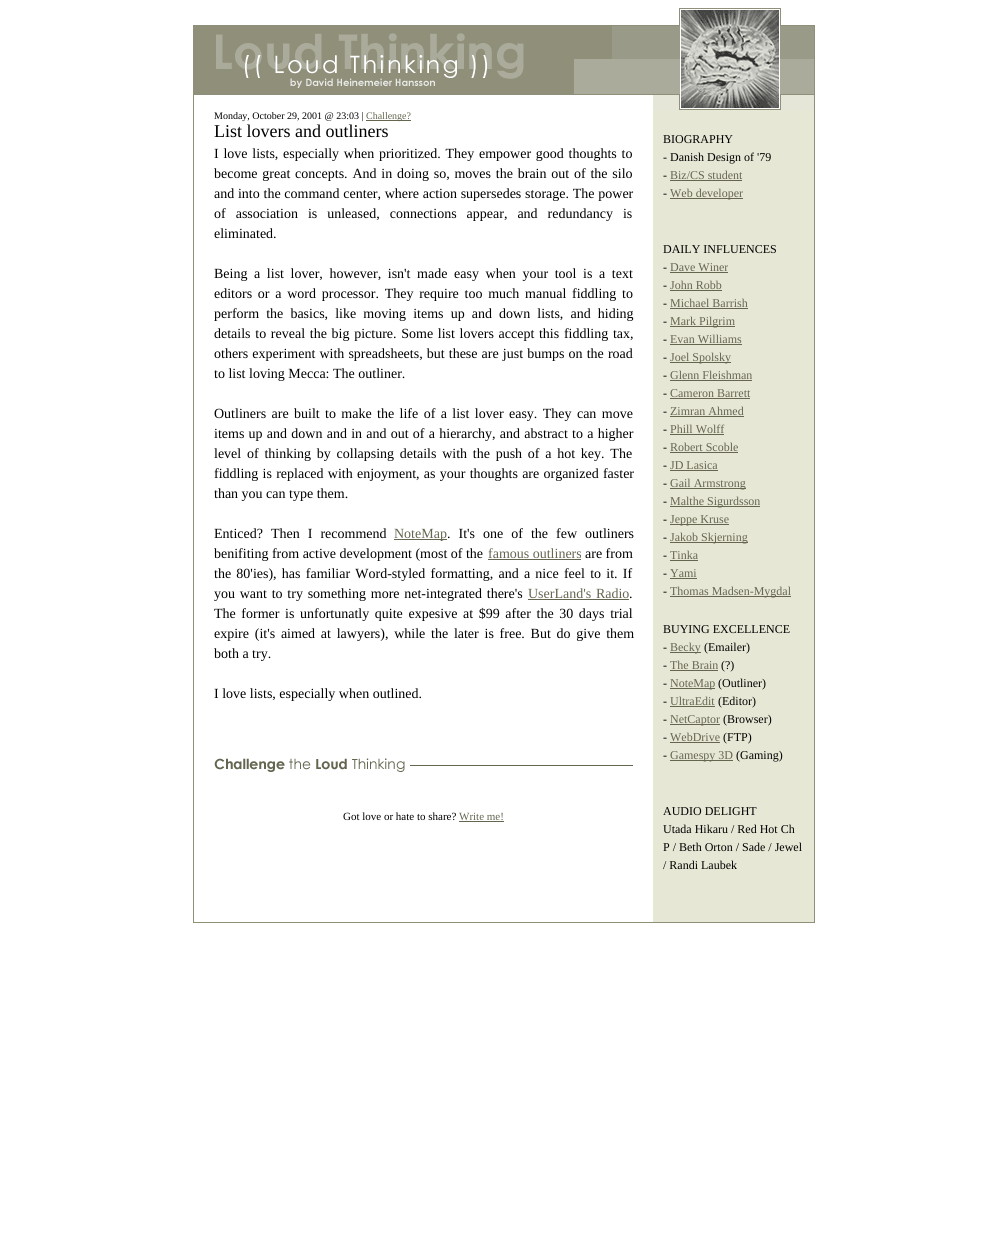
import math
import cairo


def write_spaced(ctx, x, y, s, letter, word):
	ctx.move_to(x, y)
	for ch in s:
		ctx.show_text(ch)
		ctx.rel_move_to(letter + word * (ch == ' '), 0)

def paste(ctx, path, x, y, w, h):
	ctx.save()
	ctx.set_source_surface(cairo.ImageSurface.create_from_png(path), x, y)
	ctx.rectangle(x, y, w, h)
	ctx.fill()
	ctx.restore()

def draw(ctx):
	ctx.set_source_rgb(1, 1, 1)
	ctx.paint()
	paste(ctx, 'media/1.png', 193, 8, 622, 102)
	ctx.set_source_rgb(0.561, 0.561, 0.478)
	ctx.rectangle(193, 922, 460, 1)
	ctx.fill()
	ctx.rectangle(193, 110, 1, 813)
	ctx.fill()
	ctx.select_font_face('Liberation Serif')
	ctx.set_font_size(10)
	ctx.set_source_rgb(0, 0, 0)
	ctx.move_to(214, 119)
	ctx.show_text('Monday, October 29, 2001 @ 23:03 |')
	ctx.set_source_rgb(0.396, 0.396, 0.314)
	ctx.rectangle(366, 120, 45, 1)
	ctx.fill()
	ctx.move_to(366, 119)
	ctx.show_text('Challenge?')
	ctx.set_font_size(18)
	ctx.set_source_rgb(0, 0, 0)
	ctx.move_to(214, 137)
	ctx.show_text('List lovers and outliners')
	ctx.set_font_size(14)
	write_spaced(ctx, 214, 158, 'I love lists, especially when prioritized. They empower good thoughts to', 0, 1.25)
	write_spaced(ctx, 214, 178, 'become great concepts. And in doing so, moves the brain out of the silo', 0, 1.3)
	write_spaced(ctx, 214, 198, 'and into the command center, where action supersedes storage. The power', 0, 0.25)
	write_spaced(ctx, 214, 218, 'of association is unleased, connections appear, and redundancy is', 0, 6.5)
	ctx.move_to(214, 238)
	ctx.show_text('eliminated.')
	write_spaced(ctx, 214, 278, 'Being a list lover, however, isn\'t made easy when your tool is a text', 0, 3.1)
	write_spaced(ctx, 214, 298, 'editors or a word processor. They require too much manual fiddling to', 0, 2.25)
	write_spaced(ctx, 214, 318, 'perform the basics, like moving items up and down lists, and hiding', 0, 3.6)
	write_spaced(ctx, 214, 338, 'details to reveal the big picture. Some list lovers accept this fiddling tax,', 0, 1.2)
	write_spaced(ctx, 214, 358, 'others experiment with spreadsheets, but these are just bumps on the road', 0, 0.6)
	ctx.move_to(214, 378)
	ctx.show_text('to list loving Mecca: The outliner.')
	write_spaced(ctx, 214, 418, 'Outliners are built to make the life of a list lover easy. They can move', 0, 1.9)
	write_spaced(ctx, 214, 438, 'items up and down and in and out of a hierarchy, and abstract to a higher', 0, 0.75)
	write_spaced(ctx, 214, 458, 'level of thinking by collapsing details with the push of a hot key. The', 0, 2.25)
	write_spaced(ctx, 214, 478, 'fiddling is replaced with enjoyment, as your thoughts are organized faster', 0, 0.75)
	ctx.move_to(214, 498)
	ctx.show_text('than you can type them.')
	write_spaced(ctx, 214, 538, 'Enticed? Then I recommend', 0, 4.5)
	ctx.set_source_rgb(0.396, 0.396, 0.314)
	ctx.rectangle(394, 539, 53, 1)
	ctx.fill()
	ctx.move_to(394, 538)
	ctx.show_text('NoteMap')
	ctx.set_source_rgb(0, 0, 0)
	write_spaced(ctx, 447, 538, '. It\'s one of the few outliners', 0, 4.5)
	ctx.move_to(214, 558)
	ctx.show_text('benifiting from active development (most of the')
	ctx.set_source_rgb(0.396, 0.396, 0.314)
	ctx.move_to(488, 558)
	ctx.show_text('famous outliners')
	ctx.rectangle(488, 559, 93, 1)
	ctx.fill()
	ctx.set_source_rgb(0, 0, 0)
	ctx.move_to(585, 558)
	ctx.show_text('are from')
	write_spaced(ctx, 214, 578, 'the 80\'ies), has familiar Word-styled formatting, and a nice feel to it. If', 0, 1.75)
	write_spaced(ctx, 214, 598, 'you want to try something more net-integrated there\'s', 0, 1.25)
	ctx.set_source_rgb(0.396, 0.396, 0.314)
	write_spaced(ctx, 528, 598, 'UserLand\'s Radio', 0, 1.25)
	ctx.rectangle(528, 599, 101, 1)
	ctx.fill()
	ctx.set_source_rgb(0, 0, 0)
	ctx.move_to(629, 598)
	ctx.show_text('.')
	write_spaced(ctx, 214, 618, 'The former is unfortunatly quite expesive at $99 after the 30 days trial', 0, 2.1)
	write_spaced(ctx, 214, 638, 'expire (it\'s aimed at lawyers), while the later is free. But do give them', 0, 2.25)
	ctx.move_to(214, 658)
	ctx.show_text('both a try.')
	ctx.move_to(214, 698)
	ctx.show_text('I love lists, especially when outlined.')
	paste(ctx, 'media/2.png', 214, 758, 419, 14)
	ctx.set_font_size(11)
	ctx.move_to(343, 820)
	ctx.show_text('Got love or hate to share?')
	ctx.set_source_rgb(0.396, 0.396, 0.314)
	ctx.move_to(459, 820)
	ctx.show_text('Write me!')
	ctx.rectangle(459, 821, 45, 1)
	ctx.fill()
	ctx.set_source_rgb(0.906, 0.906, 0.839)
	ctx.rectangle(653, 110, 161, 812)
	ctx.fill()
	ctx.set_source_rgb(0.561, 0.561, 0.478)
	ctx.rectangle(814, 110, 1, 813)
	ctx.rectangle(653, 922, 162, 1)
	ctx.fill()
	ctx.set_font_size(12)
	ctx.set_source_rgb(0, 0, 0)
	for x, y, s in [
		(663, 143, 'BIOGRAPHY'),
		(663, 161, '- Danish Design of \'79'),
		(663, 179, '-'),
	]:
		ctx.move_to(x, y)
		ctx.show_text(s)
	ctx.set_source_rgb(0.396, 0.396, 0.314)
	ctx.move_to(670, 179)
	ctx.show_text('Biz/CS student')
	ctx.rectangle(670, 180, 72, 1)
	ctx.fill()
	ctx.set_source_rgb(0, 0, 0)
	ctx.move_to(663, 197)
	ctx.show_text('-')
	ctx.set_source_rgb(0.396, 0.396, 0.314)
	ctx.rectangle(670, 198, 73, 1)
	ctx.fill()
	ctx.move_to(670, 197)
	ctx.show_text('Web developer')
	ctx.set_source_rgb(0, 0, 0)
	ctx.move_to(663, 253)
	ctx.show_text('DAILY INFLUENCES')
	ctx.move_to(663, 271)
	ctx.show_text('-')
	ctx.set_source_rgb(0.396, 0.396, 0.314)
	ctx.move_to(670, 271)
	ctx.show_text('Dave Winer')
	ctx.rectangle(670, 272, 58, 1)
	ctx.fill()
	ctx.set_source_rgb(0, 0, 0)
	ctx.move_to(663, 289)
	ctx.show_text('-')
	ctx.set_source_rgb(0.396, 0.396, 0.314)
	ctx.move_to(670, 289)
	ctx.show_text('John Robb')
	ctx.rectangle(670, 290, 52, 1)
	ctx.fill()
	ctx.set_source_rgb(0, 0, 0)
	ctx.move_to(663, 307)
	ctx.show_text('-')
	ctx.set_source_rgb(0.396, 0.396, 0.314)
	ctx.move_to(670, 307)
	ctx.show_text('Michael Barrish')
	ctx.rectangle(670, 308, 78, 1)
	ctx.fill()
	ctx.set_source_rgb(0, 0, 0)
	ctx.move_to(663, 325)
	ctx.show_text('-')
	ctx.set_source_rgb(0.396, 0.396, 0.314)
	ctx.rectangle(670, 326, 65, 1)
	ctx.fill()
	ctx.move_to(670, 325)
	ctx.show_text('Mark Pilgrim')
	ctx.set_source_rgb(0, 0, 0)
	ctx.move_to(663, 343)
	ctx.show_text('-')
	ctx.set_source_rgb(0.396, 0.396, 0.314)
	ctx.move_to(670, 343)
	ctx.show_text('Evan Williams')
	ctx.rectangle(670, 344, 72, 1)
	ctx.fill()
	ctx.set_source_rgb(0, 0, 0)
	ctx.move_to(663, 361)
	ctx.show_text('-')
	ctx.set_source_rgb(0.396, 0.396, 0.314)
	ctx.rectangle(670, 362, 61, 1)
	ctx.fill()
	ctx.move_to(670, 361)
	ctx.show_text('Joel Spolsky')
	ctx.set_source_rgb(0, 0, 0)
	ctx.move_to(663, 379)
	ctx.show_text('-')
	ctx.set_source_rgb(0.396, 0.396, 0.314)
	ctx.move_to(670, 379)
	ctx.show_text('Glenn Fleishman')
	ctx.rectangle(670, 380, 82, 1)
	ctx.fill()
	ctx.set_source_rgb(0, 0, 0)
	ctx.move_to(663, 397)
	ctx.show_text('-')
	ctx.set_source_rgb(0.396, 0.396, 0.314)
	ctx.move_to(670, 397)
	ctx.show_text('Cameron Barrett')
	ctx.rectangle(670, 398, 80, 1)
	ctx.fill()
	ctx.set_source_rgb(0, 0, 0)
	ctx.move_to(663, 415)
	ctx.show_text('-')
	ctx.set_source_rgb(0.396, 0.396, 0.314)
	ctx.move_to(670, 415)
	ctx.show_text('Zimran Ahmed')
	ctx.rectangle(670, 416, 74, 1)
	ctx.fill()
	ctx.set_source_rgb(0, 0, 0)
	ctx.move_to(663, 433)
	ctx.show_text('-')
	ctx.set_source_rgb(0.396, 0.396, 0.314)
	ctx.move_to(670, 433)
	ctx.show_text('Phill Wolff')
	ctx.rectangle(670, 434, 54, 1)
	ctx.fill()
	ctx.set_source_rgb(0, 0, 0)
	ctx.move_to(663, 451)
	ctx.show_text('-')
	ctx.set_source_rgb(0.396, 0.396, 0.314)
	ctx.move_to(670, 451)
	ctx.show_text('Robert Scoble')
	ctx.rectangle(670, 452, 68, 1)
	ctx.fill()
	ctx.set_source_rgb(0, 0, 0)
	ctx.move_to(663, 469)
	ctx.show_text('-')
	ctx.set_source_rgb(0.396, 0.396, 0.314)
	ctx.move_to(670, 469)
	ctx.show_text('JD Lasica')
	ctx.rectangle(670, 470, 48, 1)
	ctx.fill()
	ctx.set_source_rgb(0, 0, 0)
	ctx.move_to(663, 487)
	ctx.show_text('-')
	ctx.set_source_rgb(0.396, 0.396, 0.314)
	ctx.rectangle(670, 488, 76, 1)
	ctx.fill()
	ctx.move_to(670, 487)
	ctx.show_text('Gail Armstrong')
	ctx.set_source_rgb(0, 0, 0)
	ctx.move_to(663, 505)
	ctx.show_text('-')
	ctx.set_source_rgb(0.396, 0.396, 0.314)
	ctx.rectangle(670, 506, 90, 1)
	ctx.fill()
	ctx.move_to(670, 505)
	ctx.show_text('Malthe Sigurdsson')
	ctx.set_source_rgb(0, 0, 0)
	ctx.move_to(663, 523)
	ctx.show_text('-')
	ctx.set_source_rgb(0.396, 0.396, 0.314)
	ctx.rectangle(670, 524, 59, 1)
	ctx.fill()
	ctx.move_to(670, 523)
	ctx.show_text('Jeppe Kruse')
	ctx.set_source_rgb(0, 0, 0)
	ctx.move_to(663, 541)
	ctx.show_text('-')
	ctx.set_source_rgb(0.396, 0.396, 0.314)
	ctx.rectangle(670, 542, 78, 1)
	ctx.fill()
	ctx.move_to(670, 541)
	ctx.show_text('Jakob Skjerning')
	ctx.set_source_rgb(0, 0, 0)
	ctx.move_to(663, 559)
	ctx.show_text('-')
	ctx.set_source_rgb(0.396, 0.396, 0.314)
	ctx.move_to(670, 559)
	ctx.show_text('Tinka')
	ctx.rectangle(670, 560, 28, 1)
	ctx.fill()
	ctx.set_source_rgb(0, 0, 0)
	ctx.move_to(663, 577)
	ctx.show_text('-')
	ctx.set_source_rgb(0.396, 0.396, 0.314)
	ctx.move_to(670, 577)
	ctx.show_text('Yami')
	ctx.rectangle(670, 578, 27, 1)
	ctx.fill()
	ctx.set_source_rgb(0, 0, 0)
	ctx.move_to(663, 595)
	ctx.show_text('-')
	ctx.set_source_rgb(0.396, 0.396, 0.314)
	ctx.rectangle(670, 596, 121, 1)
	ctx.fill()
	ctx.move_to(670, 595)
	ctx.show_text('Thomas Madsen-Mygdal')
	ctx.set_source_rgb(0, 0, 0)
	ctx.move_to(663, 633)
	ctx.show_text('BUYING EXCELLENCE')
	ctx.move_to(663, 651)
	ctx.show_text('-')
	ctx.set_source_rgb(0.396, 0.396, 0.314)
	ctx.rectangle(670, 652, 31, 1)
	ctx.fill()
	ctx.move_to(670, 651)
	ctx.show_text('Becky')
	ctx.set_source_rgb(0, 0, 0)
	ctx.move_to(704, 651)
	ctx.show_text('(Emailer)')
	ctx.move_to(663, 669)
	ctx.show_text('-')
	ctx.set_source_rgb(0.396, 0.396, 0.314)
	ctx.move_to(670, 669)
	ctx.show_text('The Brain')
	ctx.rectangle(670, 670, 48, 1)
	ctx.fill()
	ctx.set_source_rgb(0, 0, 0)
	ctx.move_to(721, 669)
	ctx.show_text('(?)')
	ctx.move_to(663, 687)
	ctx.show_text('-')
	ctx.set_source_rgb(0.396, 0.396, 0.314)
	ctx.rectangle(670, 688, 45, 1)
	ctx.fill()
	ctx.move_to(670, 687)
	ctx.show_text('NoteMap')
	ctx.set_source_rgb(0, 0, 0)
	ctx.move_to(718, 687)
	ctx.show_text('(Outliner)')
	ctx.move_to(663, 705)
	ctx.show_text('-')
	ctx.set_source_rgb(0.396, 0.396, 0.314)
	ctx.move_to(670, 705)
	ctx.show_text('UltraEdit')
	ctx.rectangle(670, 706, 45, 1)
	ctx.fill()
	ctx.set_source_rgb(0, 0, 0)
	ctx.move_to(718, 705)
	ctx.show_text('(Editor)')
	ctx.move_to(663, 723)
	ctx.show_text('-')
	ctx.set_source_rgb(0.396, 0.396, 0.314)
	ctx.rectangle(670, 724, 50, 1)
	ctx.fill()
	ctx.move_to(670, 723)
	ctx.show_text('NetCaptor')
	ctx.set_source_rgb(0, 0, 0)
	ctx.move_to(723, 723)
	ctx.show_text('(Browser)')
	ctx.move_to(663, 741)
	ctx.show_text('-')
	ctx.set_source_rgb(0.396, 0.396, 0.314)
	ctx.move_to(670, 741)
	ctx.show_text('WebDrive')
	ctx.rectangle(670, 742, 50, 1)
	ctx.fill()
	ctx.set_source_rgb(0, 0, 0)
	ctx.move_to(723, 741)
	ctx.show_text('(FTP)')
	ctx.move_to(663, 759)
	ctx.show_text('-')
	ctx.set_source_rgb(0.396, 0.396, 0.314)
	ctx.rectangle(670, 760, 63, 1)
	ctx.fill()
	ctx.move_to(670, 759)
	ctx.show_text('Gamespy 3D')
	ctx.set_source_rgb(0, 0, 0)
	for x, y, s in [
		(736, 759, '(Gaming)'),
		(663, 815, 'AUDIO DELIGHT'),
		(663, 833, 'Utada Hikaru / Red Hot Ch'),
		(663, 851, 'P / Beth Orton / Sade / Jewel'),
		(663, 869, '/ Randi Laubek'),
	]:
		ctx.move_to(x, y)
		ctx.show_text(s)


surface = cairo.ImageSurface(cairo.FORMAT_RGB24, 1008, 1233)
ctx = cairo.Context(surface)
options = cairo.FontOptions()
options.set_hint_metrics(cairo.HINT_METRICS_OFF)
options.set_hint_style(cairo.HINT_STYLE_NONE)
ctx.set_font_options(options)
ctx.set_miter_limit(4)
draw(ctx)
surface.write_to_png('image.png')
